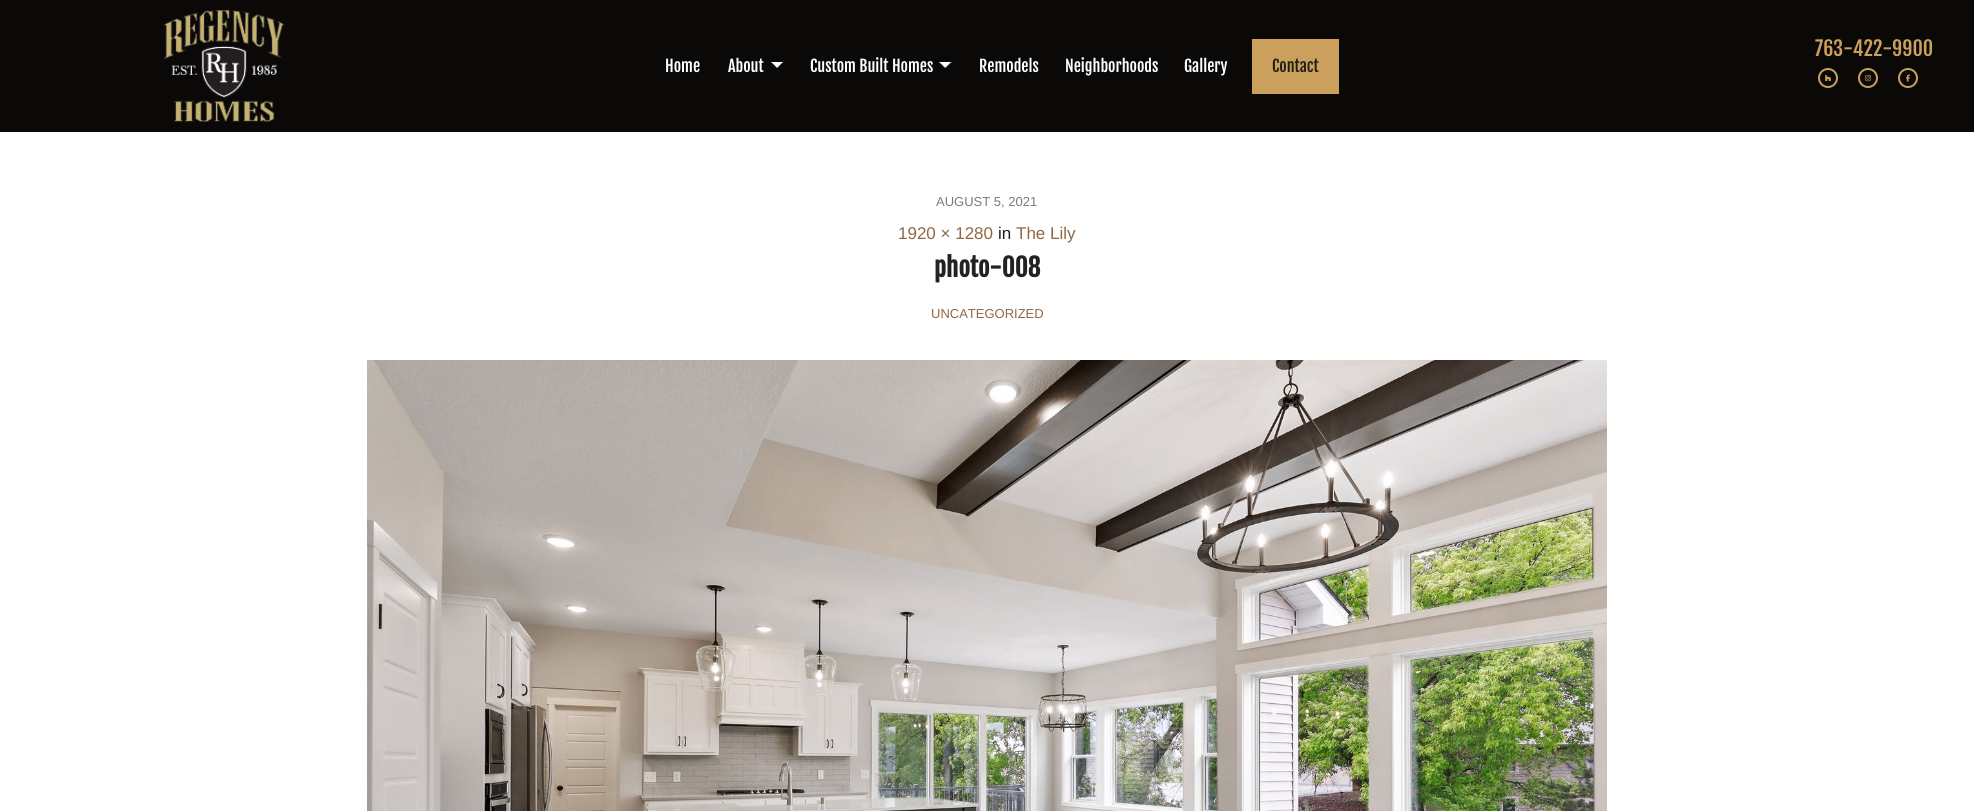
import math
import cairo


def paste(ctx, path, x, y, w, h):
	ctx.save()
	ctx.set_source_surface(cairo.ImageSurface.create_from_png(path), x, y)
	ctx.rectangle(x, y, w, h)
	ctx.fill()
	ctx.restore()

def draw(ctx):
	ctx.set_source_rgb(1, 1, 1)
	ctx.paint()
	ctx.set_source_rgb(0.043, 0.039, 0.035)
	ctx.rectangle(0, 0, 1974, 132)
	ctx.fill()
	paste(ctx, 'media/1.png', 164, 10, 120, 112)
	ctx.select_font_face('Fjalla One')
	ctx.set_font_size(20)
	ctx.set_source_rgb(0.792, 0.627, 0.361)
	ctx.move_to(1815, 56)
	ctx.show_text('763-422-9900')
	ctx.new_path()
	ctx.arc(1828, 78, 9, 0, 2 * math.pi)
	ctx.stroke()
	paste(ctx, 'media/2.png', 1825, 75, 6, 7)
	ctx.arc(1868, 78, 9, 0, 2 * math.pi)
	ctx.stroke()
	paste(ctx, 'media/3.png', 1864, 75, 8, 7)
	ctx.arc(1908, 78, 9, 0, 2 * math.pi)
	ctx.stroke()
	paste(ctx, 'media/4.png', 1906, 74, 4, 8)
	ctx.set_font_size(16)
	ctx.set_source_rgb(1, 1, 1)
	ctx.move_to(665, 72)
	ctx.show_text('Home')
	ctx.move_to(728, 72)
	ctx.show_text('About')
	paste(ctx, 'media/5.png', 771, 62, 12, 6)
	ctx.move_to(810, 72)
	ctx.show_text('Custom Built Homes')
	paste(ctx, 'media/6.png', 939, 62, 13, 6)
	for x, y, s in [
		(979, 72, 'Remodels'),
		(1065, 72, 'Neighborhoods'),
		(1184, 72, 'Gallery'),
	]:
		ctx.move_to(x, y)
		ctx.show_text(s)
	ctx.set_source_rgb(0.792, 0.627, 0.361)
	ctx.rectangle(1252, 39, 87, 55)
	ctx.fill()
	ctx.set_source_rgb(0.133, 0.118, 0.09)
	ctx.move_to(1272, 72)
	ctx.show_text('Contact')
	ctx.select_font_face('Liberation Sans')
	ctx.set_font_size(13)
	ctx.set_source_rgb(0.482, 0.482, 0.482)
	ctx.move_to(936, 206)
	ctx.show_text('AUGUST 5, 2021')
	ctx.set_font_size(17)
	ctx.set_source_rgb(0.565, 0.404, 0.267)
	ctx.move_to(898, 239)
	ctx.show_text('1920 × 1280')
	ctx.set_source_rgb(0.133, 0.118, 0.09)
	ctx.move_to(998, 239)
	ctx.show_text('in')
	ctx.set_source_rgb(0.565, 0.404, 0.267)
	ctx.move_to(1016, 239)
	ctx.show_text('The Lily')
	ctx.select_font_face('Fjalla One', cairo.FONT_SLANT_NORMAL, cairo.FONT_WEIGHT_BOLD)
	ctx.set_font_size(25)
	ctx.set_source_rgb(0.133, 0.133, 0.133)
	ctx.move_to(934, 277)
	ctx.show_text('photo-008')
	ctx.select_font_face('Liberation Sans')
	ctx.set_font_size(13)
	ctx.set_source_rgb(0.565, 0.404, 0.267)
	ctx.move_to(931, 318)
	ctx.show_text('UNCATEGORIZED')
	paste(ctx, 'media/7.png', 367, 360, 1240, 451)


surface = cairo.ImageSurface(cairo.FORMAT_RGB24, 1974, 811)
ctx = cairo.Context(surface)
options = cairo.FontOptions()
options.set_hint_metrics(cairo.HINT_METRICS_OFF)
options.set_hint_style(cairo.HINT_STYLE_NONE)
ctx.set_font_options(options)
ctx.set_miter_limit(4)
draw(ctx)
surface.write_to_png('image.png')
